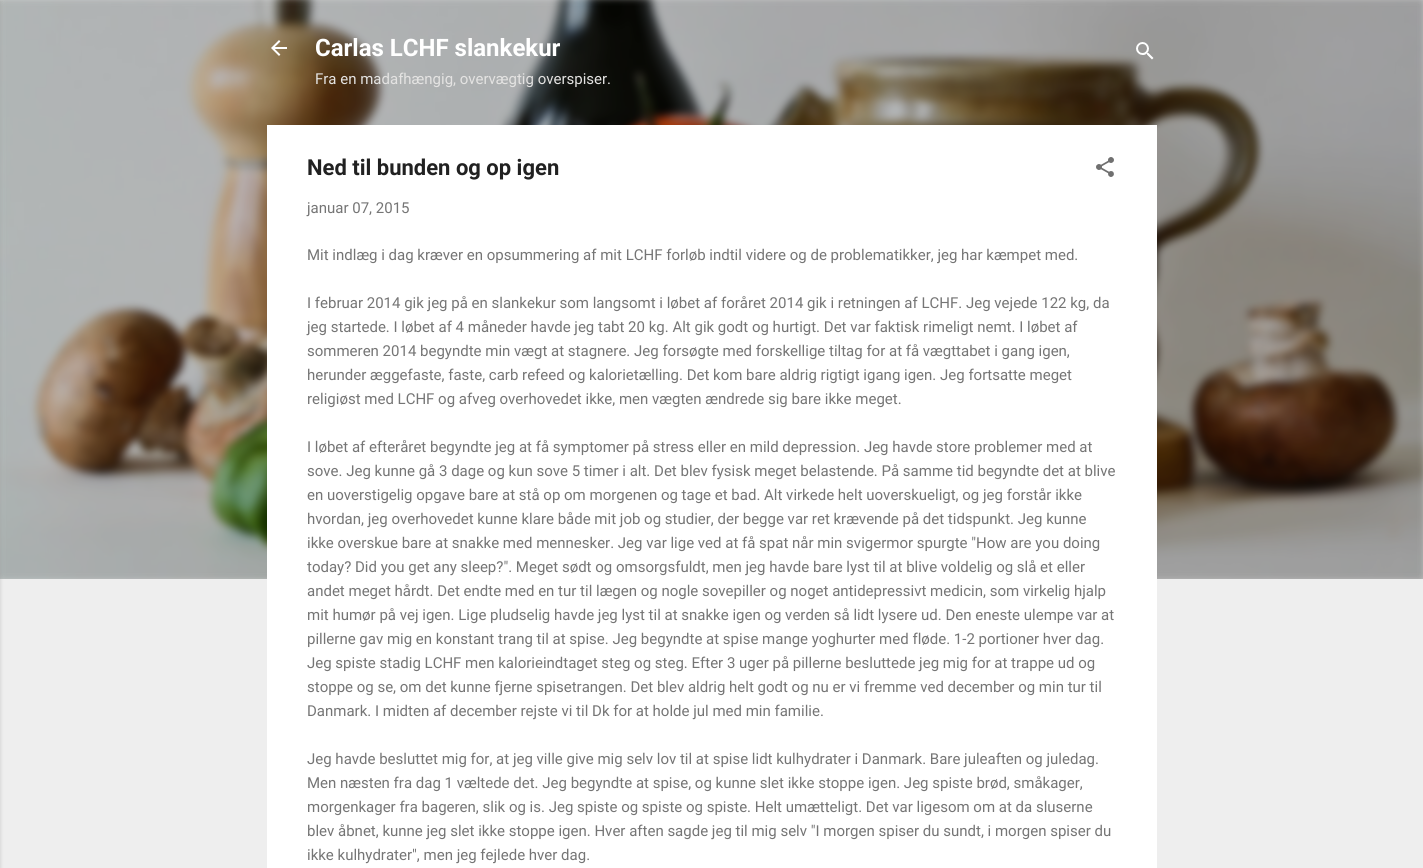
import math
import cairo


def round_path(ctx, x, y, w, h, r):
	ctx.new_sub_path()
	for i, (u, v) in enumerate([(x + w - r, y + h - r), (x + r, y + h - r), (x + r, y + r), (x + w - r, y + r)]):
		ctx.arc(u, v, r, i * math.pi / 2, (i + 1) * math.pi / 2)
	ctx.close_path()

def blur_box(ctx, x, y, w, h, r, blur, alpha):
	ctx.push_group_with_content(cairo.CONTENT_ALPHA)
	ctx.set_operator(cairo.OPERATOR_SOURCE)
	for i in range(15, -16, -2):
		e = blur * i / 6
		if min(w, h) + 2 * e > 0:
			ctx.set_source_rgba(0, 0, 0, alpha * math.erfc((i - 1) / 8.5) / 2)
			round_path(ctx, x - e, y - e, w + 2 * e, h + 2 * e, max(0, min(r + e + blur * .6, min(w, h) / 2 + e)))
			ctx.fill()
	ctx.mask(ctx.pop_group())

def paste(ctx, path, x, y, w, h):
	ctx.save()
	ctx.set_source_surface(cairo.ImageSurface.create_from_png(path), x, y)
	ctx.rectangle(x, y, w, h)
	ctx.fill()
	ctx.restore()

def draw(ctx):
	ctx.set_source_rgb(0.933, 0.933, 0.933)
	ctx.paint()
	paste(ctx, 'media/1.png', 0, 0, 1423, 579)
	ctx.set_source_rgb(0, 0, 0)
	blur_box(ctx, -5, 1, 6, 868, 0, 1.5, 0.1)
	paste(ctx, 'media/2.png', 271, 40, 16, 16)
	ctx.select_font_face('Roboto', cairo.FONT_SLANT_NORMAL, cairo.FONT_WEIGHT_BOLD)
	ctx.set_font_size(24)
	ctx.set_source_rgb(1, 1, 1)
	ctx.move_to(315, 56)
	ctx.show_text('Carlas LCHF slankekur')
	ctx.select_font_face('Roboto')
	ctx.set_font_size(15)
	ctx.set_source_rgb(0.894, 0.89, 0.886)
	ctx.move_to(315, 84)
	ctx.show_text('Fra en madafhængig, overvægtig overspiser.')
	paste(ctx, 'media/3.png', 1136, 42, 18, 18)
	ctx.set_source_rgb(1, 1, 1)
	ctx.rectangle(267, 125, 890, 743)
	ctx.fill()
	ctx.select_font_face('Roboto', cairo.FONT_SLANT_NORMAL, cairo.FONT_WEIGHT_BOLD)
	ctx.set_font_size(22)
	ctx.set_source_rgb(0.129, 0.129, 0.129)
	ctx.move_to(307, 175)
	ctx.show_text('Ned til bunden og op igen')
	paste(ctx, 'media/4.png', 1096, 157, 18, 20)
	ctx.select_font_face('Roboto')
	ctx.set_font_size(15)
	ctx.set_source_rgb(0.459, 0.459, 0.459)
	for x, y, s in [
		(307, 213, 'januar 07, 2015'),
		(307, 260, 'Mit indlæg i dag kræver en opsummering af mit LCHF forløb indtil videre og de problematikker, jeg har kæmpet med.'),
		(307, 308, 'I februar 2014 gik jeg på en slankekur som langsomt i løbet af foråret 2014 gik i retningen af LCHF. Jeg vejede 122 kg, da'),
		(307, 332, 'jeg startede. I løbet af 4 måneder havde jeg tabt 20 kg. Alt gik godt og hurtigt. Det var faktisk rimeligt nemt. I løbet af'),
		(307, 356, 'sommeren 2014 begyndte min vægt at stagnere. Jeg forsøgte med forskellige tiltag for at få vægttabet i gang igen,'),
		(307, 380, 'herunder æggefaste, faste, carb refeed og kalorietælling. Det kom bare aldrig rigtigt igang igen. Jeg fortsatte meget'),
		(307, 404, 'religiøst med LCHF og afveg overhovedet ikke, men vægten ændrede sig bare ikke meget.'),
		(307, 452, 'I løbet af efteråret begyndte jeg at få symptomer på stress eller en mild depression. Jeg havde store problemer med at'),
		(307, 476, 'sove. Jeg kunne gå 3 dage og kun sove 5 timer i alt. Det blev fysisk meget belastende. På samme tid begyndte det at blive'),
		(307, 500, 'en uoverstigelig opgave bare at stå op om morgenen og tage et bad. Alt virkede helt uoverskueligt, og jeg forstår ikke'),
		(307, 524, 'hvordan, jeg overhovedet kunne klare både mit job og studier, der begge var ret krævende på det tidspunkt. Jeg kunne'),
		(307, 548, 'ikke overskue bare at snakke med mennesker. Jeg var lige ved at få spat når min svigermor spurgte "How are you doing'),
		(307, 572, 'today? Did you get any sleep?". Meget sødt og omsorgsfuldt, men jeg havde bare lyst til at blive voldelig og slå et eller'),
		(307, 596, 'andet meget hårdt. Det endte med en tur til lægen og nogle sovepiller og noget antidepressivt medicin, som virkelig hjalp'),
		(307, 620, 'mit humør på vej igen. Lige pludselig havde jeg lyst til at snakke igen og verden så lidt lysere ud. Den eneste ulempe var at'),
		(307, 644, 'pillerne gav mig en konstant trang til at spise. Jeg begyndte at spise mange yoghurter med fløde. 1-2 portioner hver dag.'),
		(307, 668, 'Jeg spiste stadig LCHF men kalorieindtaget steg og steg. Efter 3 uger på pillerne besluttede jeg mig for at trappe ud og'),
		(307, 692, 'stoppe og se, om det kunne fjerne spisetrangen. Det blev aldrig helt godt og nu er vi fremme ved december og min tur til'),
		(307, 716, 'Danmark. I midten af december rejste vi til Dk for at holde jul med min familie.'),
		(307, 764, 'Jeg havde besluttet mig for, at jeg ville give mig selv lov til at spise lidt kulhydrater i Danmark. Bare juleaften og juledag.'),
		(307, 788, 'Men næsten fra dag 1 væltede det. Jeg begyndte at spise, og kunne slet ikke stoppe igen. Jeg spiste brød, småkager,'),
		(307, 812, 'morgenkager fra bageren, slik og is. Jeg spiste og spiste og spiste. Helt umætteligt. Det var ligesom om at da sluserne'),
		(307, 836, 'blev åbnet, kunne jeg slet ikke stoppe igen. Hver aften sagde jeg til mig selv "I morgen spiser du sundt, i morgen spiser du'),
		(307, 860, 'ikke kulhydrater", men jeg fejlede hver dag.'),
	]:
		ctx.move_to(x, y)
		ctx.show_text(s)


surface = cairo.ImageSurface(cairo.FORMAT_RGB24, 1423, 868)
ctx = cairo.Context(surface)
options = cairo.FontOptions()
options.set_hint_metrics(cairo.HINT_METRICS_OFF)
options.set_hint_style(cairo.HINT_STYLE_NONE)
ctx.set_font_options(options)
ctx.set_miter_limit(4)
draw(ctx)
surface.write_to_png('image.png')
